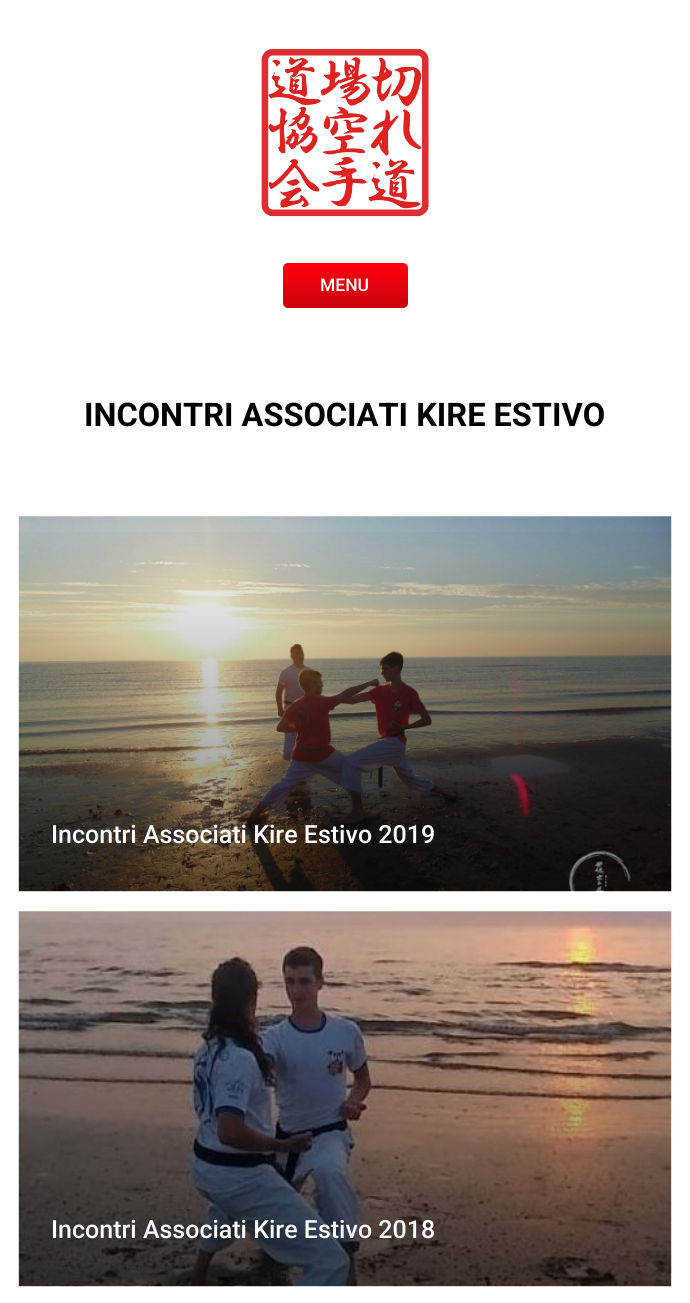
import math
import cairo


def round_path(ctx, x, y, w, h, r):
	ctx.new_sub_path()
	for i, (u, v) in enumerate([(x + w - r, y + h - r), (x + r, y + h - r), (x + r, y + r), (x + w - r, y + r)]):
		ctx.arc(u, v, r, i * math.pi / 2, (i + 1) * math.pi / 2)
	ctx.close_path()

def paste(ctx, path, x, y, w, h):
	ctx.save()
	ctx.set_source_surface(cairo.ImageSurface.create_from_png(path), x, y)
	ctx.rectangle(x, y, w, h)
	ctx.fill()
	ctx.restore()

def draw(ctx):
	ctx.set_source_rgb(1, 1, 1)
	ctx.paint()
	paste(ctx, 'media/1.png', 261, 48, 168, 169)
	gradient = cairo.LinearGradient(345, 263, 345, 308)
	gradient.add_color_stop_rgba(0, 1, 0, 0.059, 1)
	gradient.add_color_stop_rgba(1, 0.788, 0.016, 0.059, 1)
	ctx.set_source(gradient)
	round_path(ctx, 283, 263, 125, 45, 5)
	ctx.fill()
	ctx.select_font_face('Roboto Medium')
	ctx.set_font_size(17.5)
	ctx.set_source_rgb(1, 1, 1)
	ctx.move_to(320, 291)
	ctx.show_text('MENU')
	ctx.select_font_face('Roboto', cairo.FONT_SLANT_NORMAL, cairo.FONT_WEIGHT_BOLD)
	ctx.set_font_size(32.5)
	ctx.set_source_rgb(0, 0, 0)
	ctx.move_to(84, 426)
	ctx.show_text('INCONTRI ASSOCIATI KIRE ESTIVO')
	paste(ctx, 'media/2.png', 18, 516, 654, 376)
	gradient = cairo.LinearGradient(345, 516, 345, 891)
	gradient.add_color_stop_rgba(0, 0, 0, 0, 0)
	gradient.add_color_stop_rgba(1, 0, 0, 0, 0.5)
	ctx.set_source(gradient)
	ctx.rectangle(19, 532, 652, 359)
	ctx.fill()
	ctx.select_font_face('Roboto Medium')
	ctx.set_font_size(25)
	ctx.set_source_rgb(1, 1, 1)
	ctx.move_to(51, 843)
	ctx.show_text('Incontri Associati Kire Estivo 2019')
	paste(ctx, 'media/3.png', 18, 911, 654, 376)
	gradient = cairo.LinearGradient(345, 911, 345, 1286)
	gradient.add_color_stop_rgba(0, 0, 0, 0, 0)
	gradient.add_color_stop_rgba(1, 0, 0, 0, 0.5)
	ctx.set_source(gradient)
	ctx.rectangle(19, 927, 652, 359)
	ctx.fill()
	ctx.set_source_rgb(1, 1, 1)
	ctx.move_to(51, 1238)
	ctx.show_text('Incontri Associati Kire Estivo 2018')


surface = cairo.ImageSurface(cairo.FORMAT_RGB24, 690, 1303)
ctx = cairo.Context(surface)
options = cairo.FontOptions()
options.set_hint_metrics(cairo.HINT_METRICS_OFF)
options.set_hint_style(cairo.HINT_STYLE_NONE)
ctx.set_font_options(options)
ctx.set_miter_limit(4)
draw(ctx)
surface.write_to_png('image.png')
